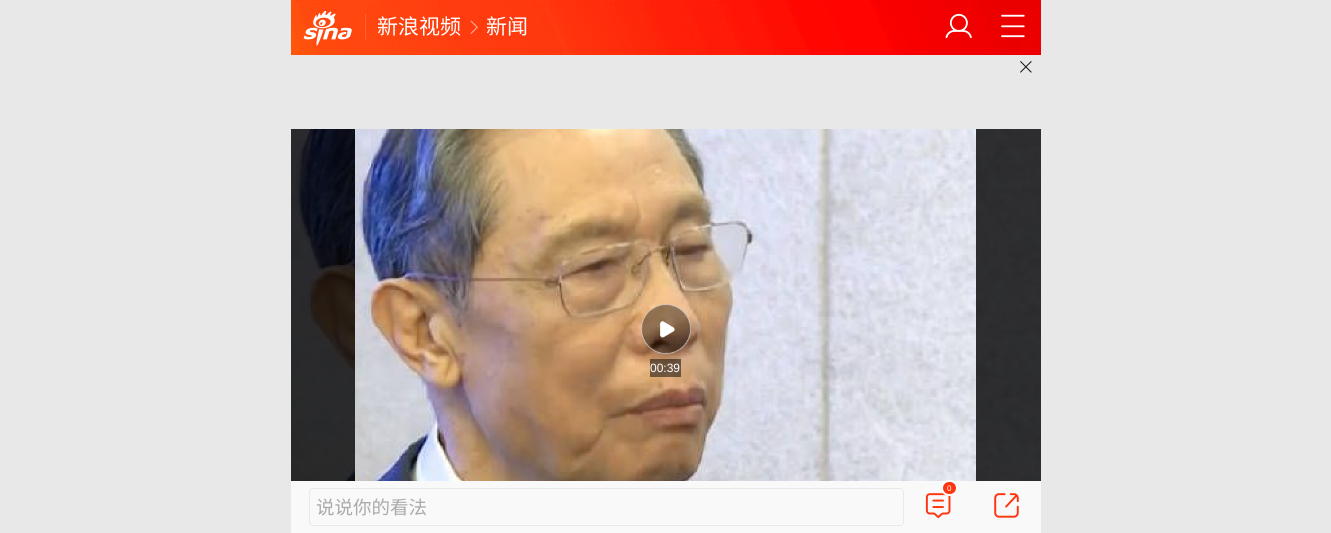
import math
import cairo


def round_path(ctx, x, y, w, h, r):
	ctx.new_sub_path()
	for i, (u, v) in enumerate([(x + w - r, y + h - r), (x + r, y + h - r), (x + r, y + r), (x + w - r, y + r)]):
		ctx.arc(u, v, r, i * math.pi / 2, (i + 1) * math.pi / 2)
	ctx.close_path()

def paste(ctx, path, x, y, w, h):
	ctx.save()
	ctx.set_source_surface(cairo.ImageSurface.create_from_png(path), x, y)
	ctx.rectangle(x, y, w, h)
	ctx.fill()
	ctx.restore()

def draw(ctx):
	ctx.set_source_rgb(0.91, 0.91, 0.91)
	ctx.paint()
	paste(ctx, 'media/1.png', 291, 0, 750, 55)
	paste(ctx, 'media/2.png', 303, 11, 49, 35)
	ctx.set_source_rgba(1, 1, 1, 0.15)
	ctx.rectangle(365, 14, 1, 26)
	ctx.fill()
	ctx.select_font_face('Noto Sans CJK SC')
	ctx.set_font_size(21)
	ctx.set_source_rgb(1, 1, 1)
	ctx.move_to(377, 34)
	ctx.show_text('新浪视频')
	paste(ctx, 'media/3.png', 470, 20, 8, 14)
	ctx.move_to(486, 34)
	ctx.show_text('新闻')
	paste(ctx, 'media/4.png', 945, 13, 27, 26)
	paste(ctx, 'media/5.png', 1001, 14, 24, 24)
	paste(ctx, 'media/6.png', 1020, 61, 12, 12)
	paste(ctx, 'media/7.png', 291, 129, 750, 352)
	paste(ctx, 'media/8.png', 355, 129, 621, 352)
	paste(ctx, 'media/9.png', 641, 304, 50, 50)
	ctx.set_source_rgba(0, 0, 0, 0.5)
	ctx.rectangle(650, 359, 31, 18)
	ctx.fill()
	ctx.select_font_face('Liberation Sans')
	ctx.set_font_size(12)
	ctx.set_source_rgb(1, 1, 1)
	ctx.move_to(650, 372)
	ctx.show_text('00:39')
	ctx.set_source_rgb(0.973, 0.973, 0.973)
	ctx.rectangle(291, 481, 750, 52)
	ctx.fill()
	paste(ctx, 'media/10.png', 925, 493, 26, 26)
	ctx.set_source_rgb(0.996, 0.208, 0.055)
	round_path(ctx, 942, 481, 15, 14, 7)
	ctx.fill_preserve()
	ctx.set_source_rgb(1, 1, 1)
	ctx.stroke()
	ctx.set_font_size(8)
	ctx.move_to(947, 491)
	ctx.show_text('0')
	paste(ctx, 'media/11.png', 994, 493, 25, 25)
	round_path(ctx, 309.5, 488.5, 594, 37, 3.5)
	ctx.set_source_rgb(0.914, 0.914, 0.914)
	ctx.set_line_width(1)
	ctx.stroke()
	ctx.select_font_face('Noto Sans CJK SC')
	ctx.set_font_size(18.5)
	ctx.set_source_rgb(0.667, 0.667, 0.667)
	ctx.move_to(316, 514)
	ctx.show_text('说说你的看法')


surface = cairo.ImageSurface(cairo.FORMAT_RGB24, 1331, 533)
ctx = cairo.Context(surface)
options = cairo.FontOptions()
options.set_hint_metrics(cairo.HINT_METRICS_OFF)
options.set_hint_style(cairo.HINT_STYLE_NONE)
ctx.set_font_options(options)
ctx.set_miter_limit(4)
draw(ctx)
surface.write_to_png('image.png')
